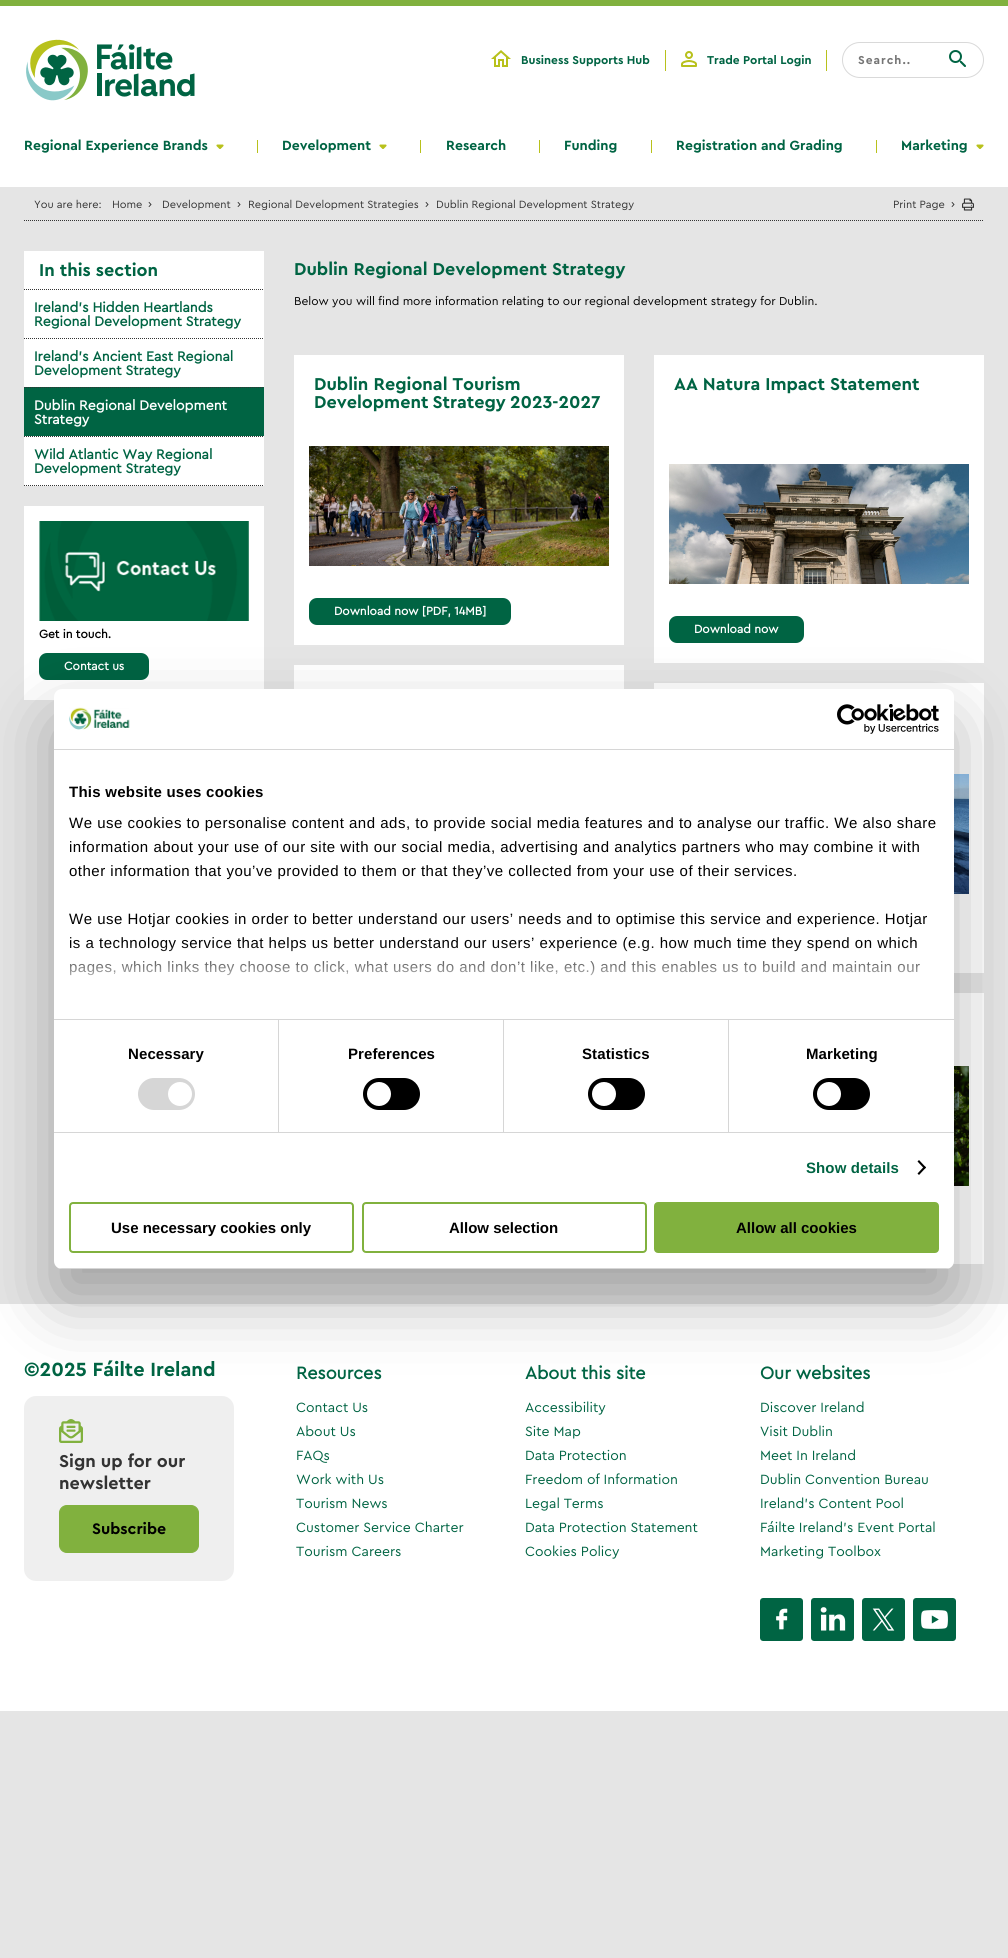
import math
import cairo


def write_spaced(ctx, x, y, s, letter, word):
	ctx.move_to(x, y)
	for ch in s:
		ctx.show_text(ch)
		ctx.rel_move_to(letter + word * (ch == ' '), 0)

def round_path(ctx, x, y, w, h, r):
	ctx.new_sub_path()
	for i, (u, v) in enumerate([(x + w - r, y + h - r), (x + r, y + h - r), (x + r, y + r), (x + w - r, y + r)]):
		ctx.arc(u, v, r, i * math.pi / 2, (i + 1) * math.pi / 2)
	ctx.close_path()

def blur_box(ctx, x, y, w, h, r, blur, alpha):
	ctx.push_group_with_content(cairo.CONTENT_ALPHA)
	ctx.set_operator(cairo.OPERATOR_SOURCE)
	for i in range(15, -16, -2):
		e = blur * i / 6
		if min(w, h) + 2 * e > 0:
			ctx.set_source_rgba(0, 0, 0, alpha * math.erfc((i - 1) / 8.5) / 2)
			round_path(ctx, x - e, y - e, w + 2 * e, h + 2 * e, max(0, min(r + e + blur * .6, min(w, h) / 2 + e)))
			ctx.fill()
	ctx.mask(ctx.pop_group())

def paste(ctx, path, x, y, w, h):
	ctx.save()
	ctx.set_source_surface(cairo.ImageSurface.create_from_png(path), x, y)
	ctx.rectangle(x, y, w, h)
	ctx.fill()
	ctx.restore()

def draw(ctx):
	ctx.set_source_rgb(0.898, 0.898, 0.898)
	ctx.paint()
	ctx.set_source_rgb(1, 1, 1)
	ctx.rectangle(0, 6, 1008, 181)
	ctx.fill()
	ctx.set_source_rgb(0.506, 0.694, 0.243)
	ctx.rectangle(0, 0, 1008, 6)
	ctx.fill()
	paste(ctx, 'media/1.png', 26, 39, 169, 62)
	paste(ctx, 'media/2.png', 491, 50, 20, 17)
	ctx.select_font_face('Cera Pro', cairo.FONT_SLANT_NORMAL, cairo.FONT_WEIGHT_BOLD)
	ctx.set_font_size(12)
	ctx.set_source_rgb(0, 0.392, 0.263)
	ctx.move_to(521, 64)
	ctx.show_text('Business Supports Hub')
	ctx.set_source_rgb(0.722, 0.757, 0.11)
	ctx.rectangle(665, 50, 1, 21)
	ctx.fill()
	paste(ctx, 'media/3.png', 681, 51, 16, 16)
	ctx.set_source_rgb(0, 0.392, 0.263)
	ctx.move_to(707, 64)
	ctx.show_text('Trade Portal Login')
	ctx.set_source_rgb(0.722, 0.757, 0.11)
	ctx.rectangle(826, 50, 1, 21)
	ctx.fill()
	round_path(ctx, 842.5, 42.5, 141, 35, 17.5)
	ctx.set_source_rgb(0.851, 0.851, 0.851)
	ctx.set_line_width(1)
	ctx.stroke()
	ctx.set_source_rgb(0.459, 0.459, 0.459)
	write_spaced(ctx, 858, 64, 'Search..', 1, 0)
	paste(ctx, 'media/4.png', 949, 50, 17, 17)
	ctx.set_font_size(14)
	ctx.set_source_rgb(0, 0.392, 0.263)
	ctx.move_to(24, 150)
	ctx.show_text('Regional Experience Brands')
	paste(ctx, 'media/5.png', 216, 144, 8, 5)
	ctx.set_source_rgb(0.722, 0.757, 0.11)
	ctx.rectangle(257, 140, 1, 13)
	ctx.fill()
	ctx.set_source_rgb(0, 0.392, 0.263)
	ctx.move_to(282, 150)
	ctx.show_text('Development')
	paste(ctx, 'media/5.png', 379, 144, 8, 5)
	ctx.set_source_rgb(0.722, 0.757, 0.11)
	ctx.rectangle(420, 140, 1, 13)
	ctx.fill()
	ctx.set_source_rgb(0, 0.392, 0.263)
	ctx.move_to(446, 150)
	ctx.show_text('Research')
	ctx.set_source_rgb(0.722, 0.757, 0.11)
	ctx.rectangle(539, 140, 1, 13)
	ctx.fill()
	ctx.set_source_rgb(0, 0.392, 0.263)
	ctx.move_to(564, 150)
	ctx.show_text('Funding')
	ctx.set_source_rgb(0.722, 0.757, 0.11)
	ctx.rectangle(651, 140, 1, 13)
	ctx.fill()
	ctx.set_source_rgb(0, 0.392, 0.263)
	ctx.move_to(676, 150)
	ctx.show_text('Registration and Grading')
	ctx.set_source_rgb(0.722, 0.757, 0.11)
	ctx.rectangle(876, 140, 1, 13)
	ctx.fill()
	ctx.set_source_rgb(0, 0.392, 0.263)
	ctx.move_to(901, 150)
	ctx.show_text('Marketing')
	paste(ctx, 'media/5.png', 976, 144, 8, 5)
	ctx.new_path()
	ctx.move_to(24, 220.5)
	ctx.line_to(984, 220.5)
	ctx.set_source_rgb(0.2, 0.2, 0.2)
	ctx.set_dash([1, 1])
	ctx.stroke()
	ctx.select_font_face('Cera Pro')
	ctx.set_font_size(11)
	ctx.move_to(34, 208)
	ctx.show_text('You are here:')
	ctx.move_to(112, 208)
	ctx.show_text('Home')
	ctx.set_font_size(13)
	ctx.move_to(148, 208)
	ctx.show_text('›')
	ctx.set_font_size(11)
	ctx.move_to(162, 208)
	ctx.show_text('Development')
	ctx.set_font_size(13)
	ctx.move_to(237, 208)
	ctx.show_text('›')
	ctx.set_font_size(11)
	ctx.move_to(248, 208)
	ctx.show_text('Regional Development Strategies')
	ctx.set_font_size(13)
	ctx.move_to(425, 208)
	ctx.show_text('›')
	ctx.set_font_size(11)
	ctx.move_to(436, 208)
	ctx.show_text('Dublin Regional Development Strategy')
	ctx.move_to(893, 208)
	ctx.show_text('Print Page')
	ctx.set_font_size(13)
	ctx.move_to(951, 208)
	ctx.show_text('›')
	paste(ctx, 'media/6.png', 962, 198, 12, 13)
	ctx.set_source_rgb(1, 1, 1)
	ctx.rectangle(24, 251, 240, 235)
	ctx.fill()
	ctx.select_font_face('Cera Pro', cairo.FONT_SLANT_NORMAL, cairo.FONT_WEIGHT_BOLD)
	ctx.set_font_size(18)
	ctx.set_source_rgb(0, 0.392, 0.263)
	ctx.move_to(39, 276)
	ctx.show_text('In this section')
	ctx.new_path()
	ctx.move_to(24, 485.5)
	ctx.line_to(264, 485.5)
	ctx.set_source_rgb(0.2, 0.2, 0.2)
	ctx.stroke()
	ctx.new_path()
	ctx.move_to(24, 289.5)
	ctx.line_to(264, 289.5)
	ctx.stroke()
	ctx.select_font_face('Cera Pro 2', cairo.FONT_SLANT_NORMAL, cairo.FONT_WEIGHT_BOLD)
	ctx.set_font_size(14)
	ctx.set_source_rgb(0, 0.392, 0.263)
	ctx.move_to(34, 312)
	ctx.show_text('Ireland\'s Hidden Heartlands')
	ctx.move_to(34, 326)
	ctx.show_text('Regional Development Strategy')
	ctx.new_path()
	ctx.move_to(24, 338.5)
	ctx.line_to(264, 338.5)
	ctx.set_source_rgb(0.2, 0.2, 0.2)
	ctx.stroke()
	ctx.set_source_rgb(0, 0.392, 0.263)
	ctx.move_to(34, 361)
	ctx.show_text('Ireland\'s Ancient East Regional')
	ctx.move_to(34, 375)
	ctx.show_text('Development Strategy')
	ctx.rectangle(24, 387, 240, 49)
	ctx.fill()
	ctx.new_path()
	ctx.move_to(24, 387.5)
	ctx.line_to(264, 387.5)
	ctx.set_source_rgb(0.2, 0.2, 0.2)
	ctx.stroke()
	ctx.set_source_rgb(1, 1, 1)
	ctx.move_to(34, 410)
	ctx.show_text('Dublin Regional Development')
	ctx.move_to(34, 424)
	ctx.show_text('Strategy')
	ctx.new_path()
	ctx.move_to(24, 436.5)
	ctx.line_to(264, 436.5)
	ctx.set_source_rgb(0.2, 0.2, 0.2)
	ctx.stroke()
	ctx.set_source_rgb(0, 0.392, 0.263)
	ctx.move_to(34, 459)
	ctx.show_text('Wild Atlantic Way Regional')
	ctx.move_to(34, 473)
	ctx.show_text('Development Strategy')
	ctx.set_source_rgb(1, 1, 1)
	ctx.rectangle(24, 506, 240, 194)
	ctx.fill()
	paste(ctx, 'media/7.png', 39, 521, 210, 100)
	ctx.set_font_size(12)
	ctx.set_source_rgb(0, 0, 0)
	ctx.move_to(39, 638)
	ctx.show_text('Get in touch.')
	ctx.set_source_rgb(0, 0.392, 0.263)
	round_path(ctx, 39, 653, 110, 27, 8)
	ctx.fill()
	ctx.set_source_rgb(1, 1, 1)
	ctx.move_to(64, 670)
	ctx.show_text('Contact us')
	ctx.select_font_face('Cera Pro', cairo.FONT_SLANT_NORMAL, cairo.FONT_WEIGHT_BOLD)
	ctx.set_font_size(18)
	ctx.set_source_rgb(0, 0.392, 0.263)
	ctx.move_to(294, 275)
	ctx.show_text('Dublin Regional Development Strategy')
	ctx.select_font_face('Cera Pro')
	ctx.set_font_size(12)
	ctx.set_source_rgb(0, 0, 0)
	ctx.move_to(294, 305)
	ctx.show_text('Below you will find more information relating to our regional development strategy for Dublin.')
	ctx.set_source_rgb(1, 1, 1)
	ctx.rectangle(294, 355, 330, 290)
	ctx.fill()
	ctx.select_font_face('Cera Pro', cairo.FONT_SLANT_NORMAL, cairo.FONT_WEIGHT_BOLD)
	ctx.set_font_size(18)
	ctx.set_source_rgb(0, 0.392, 0.263)
	ctx.move_to(314, 390)
	ctx.show_text('Dublin Regional Tourism')
	write_spaced(ctx, 314, 408, 'Development Strategy 2023-2027', 0, -1)
	paste(ctx, 'media/8.png', 309, 446, 300, 120)
	round_path(ctx, 309, 598, 202, 27, 8)
	ctx.fill()
	ctx.select_font_face('Cera Pro 2', cairo.FONT_SLANT_NORMAL, cairo.FONT_WEIGHT_BOLD)
	ctx.set_font_size(12)
	ctx.set_source_rgb(1, 1, 1)
	ctx.move_to(334, 615)
	ctx.show_text('Download now [PDF, 14MB]')
	ctx.rectangle(294, 665, 330, 24)
	ctx.fill()
	ctx.rectangle(654, 355, 330, 308)
	ctx.fill()
	ctx.select_font_face('Cera Pro', cairo.FONT_SLANT_NORMAL, cairo.FONT_WEIGHT_BOLD)
	ctx.set_font_size(18)
	ctx.set_source_rgb(0, 0.392, 0.263)
	ctx.move_to(674, 390)
	ctx.show_text('AA Natura Impact Statement')
	paste(ctx, 'media/9.png', 669, 464, 300, 120)
	round_path(ctx, 669, 616, 135, 27, 8)
	ctx.fill()
	ctx.select_font_face('Cera Pro 2', cairo.FONT_SLANT_NORMAL, cairo.FONT_WEIGHT_BOLD)
	ctx.set_font_size(12)
	ctx.set_source_rgb(1, 1, 1)
	ctx.move_to(694, 633)
	ctx.show_text('Download now')
	ctx.rectangle(654, 683, 330, 290)
	ctx.fill()
	paste(ctx, 'media/10.png', 954, 774, 15, 120)
	ctx.rectangle(953, 993, 31, 271)
	ctx.fill()
	paste(ctx, 'media/11.png', 954, 1066, 15, 120)
	ctx.rectangle(0, 1304, 1008, 407)
	ctx.fill()
	ctx.select_font_face('Cera Pro', cairo.FONT_SLANT_NORMAL, cairo.FONT_WEIGHT_BOLD)
	ctx.set_font_size(20)
	ctx.set_source_rgb(0, 0.392, 0.263)
	ctx.move_to(24, 1376)
	ctx.show_text('©2025 Fáilte Ireland')
	ctx.set_source_rgb(0.937, 0.937, 0.937)
	round_path(ctx, 24, 1396, 210, 185, 12)
	ctx.fill()
	paste(ctx, 'media/12.png', 59, 1419, 24, 24)
	ctx.set_font_size(18)
	ctx.set_source_rgb(0.2, 0.2, 0.2)
	ctx.move_to(59, 1467)
	ctx.show_text('Sign up for our')
	ctx.move_to(59, 1489)
	ctx.show_text('newsletter')
	ctx.set_source_rgb(0.506, 0.694, 0.243)
	round_path(ctx, 59.5, 1505.5, 139, 47, 7.5)
	ctx.fill_preserve()
	ctx.set_dash([])
	ctx.stroke()
	ctx.set_font_size(16)
	ctx.set_source_rgb(0, 0, 0)
	ctx.move_to(92, 1534)
	ctx.show_text('Subscribe')
	ctx.select_font_face('Cera Pro 2', cairo.FONT_SLANT_NORMAL, cairo.FONT_WEIGHT_BOLD)
	ctx.set_font_size(18)
	ctx.set_source_rgb(0, 0.392, 0.263)
	ctx.move_to(296, 1379)
	ctx.show_text('Resources')
	ctx.select_font_face('Cera Pro')
	ctx.set_font_size(14)
	for x, y, s in [
		(296, 1412, 'Contact Us'),
		(296, 1436, 'About Us'),
		(296, 1460, 'FAQs'),
		(296, 1484, 'Work with Us'),
		(296, 1508, 'Tourism News'),
		(296, 1532, 'Customer Service Charter'),
		(296, 1556, 'Tourism Careers'),
	]:
		ctx.move_to(x, y)
		ctx.show_text(s)
	ctx.select_font_face('Cera Pro 2', cairo.FONT_SLANT_NORMAL, cairo.FONT_WEIGHT_BOLD)
	ctx.set_font_size(18)
	ctx.move_to(525, 1379)
	ctx.show_text('About this site')
	ctx.select_font_face('Cera Pro')
	ctx.set_font_size(14)
	for x, y, s in [
		(525, 1412, 'Accessibility'),
		(525, 1436, 'Site Map'),
		(525, 1460, 'Data Protection'),
		(525, 1484, 'Freedom of Information'),
		(525, 1508, 'Legal Terms'),
		(525, 1532, 'Data Protection Statement'),
		(525, 1556, 'Cookies Policy'),
	]:
		ctx.move_to(x, y)
		ctx.show_text(s)
	ctx.select_font_face('Cera Pro 2', cairo.FONT_SLANT_NORMAL, cairo.FONT_WEIGHT_BOLD)
	ctx.set_font_size(18)
	ctx.move_to(760, 1379)
	ctx.show_text('Our websites')
	ctx.select_font_face('Cera Pro')
	ctx.set_font_size(14)
	for x, y, s in [
		(760, 1412, 'Discover Ireland'),
		(760, 1436, 'Visit Dublin'),
		(760, 1460, 'Meet In Ireland'),
		(760, 1484, 'Dublin Convention Bureau'),
		(760, 1508, 'Ireland\'s Content Pool'),
		(760, 1532, 'Fáilte Ireland\'s Event Portal'),
		(760, 1556, 'Marketing Toolbox'),
	]:
		ctx.move_to(x, y)
		ctx.show_text(s)
	paste(ctx, 'media/13.png', 760, 1598, 43, 43)
	paste(ctx, 'media/14.png', 811, 1598, 43, 43)
	paste(ctx, 'media/15.png', 862, 1598, 43, 43)
	paste(ctx, 'media/16.png', 913, 1598, 43, 43)
	ctx.set_source_rgb(0, 0, 0)
	blur_box(ctx, 54, 721, 900, 580, 8, 34, 0.3)
	ctx.set_source_rgb(1, 1, 1)
	round_path(ctx, 54, 689, 900, 580, 8)
	ctx.fill()
	ctx.set_source_rgb(0.839, 0.839, 0.839)
	ctx.rectangle(54, 749, 900, 1)
	ctx.fill()
	paste(ctx, 'media/17.png', 69, 707, 61, 23)
	paste(ctx, 'media/18.png', 837, 704, 102, 30)
	ctx.rectangle(54, 1019, 900, 1)
	ctx.fill()
	ctx.select_font_face('Liberation Sans', cairo.FONT_SLANT_NORMAL, cairo.FONT_WEIGHT_BOLD)
	ctx.set_font_size(15)
	ctx.set_source_rgb(0, 0, 0)
	write_spaced(ctx, 69, 797, 'This website uses cookies', 0.25, 0)
	ctx.select_font_face('Liberation Sans')
	for x, y, s in [
		(69, 828, 'We use cookies to personalise content and ads, to provide social media features and to analyse our traffic. We also share'),
		(69, 852, 'information about your use of our site with our social media, advertising and analytics partners who may combine it with'),
		(69, 876, 'other information that you’ve provided to them or that they’ve collected from your use of their services.'),
		(69, 924, 'We use Hotjar cookies in order to better understand our users’ needs and to optimise this service and experience. Hotjar'),
		(69, 948, 'is a technology service that helps us better understand our users’ experience (e.g. how much time they spend on which'),
		(69, 972, 'pages, which links they choose to click, what users do and don’t like, etc.) and this enables us to build and maintain our'),
	]:
		write_spaced(ctx, x, y, s, 0.5, 0)
	gradient = cairo.LinearGradient(498, 1019, 498, 944)
	gradient.add_color_stop_rgba(0, 1, 1, 1, 1)
	gradient.add_color_stop_rgba(0.5, 1, 1, 1, 0.8)
	gradient.add_color_stop_rgba(1, 1, 1, 1, 0)
	ctx.set_source(gradient)
	ctx.rectangle(70, 945, 850, 31)
	ctx.fill()
	ctx.set_source_rgb(0.839, 0.839, 0.839)
	ctx.rectangle(54, 1132, 900, 1)
	ctx.fill()
	ctx.rectangle(278, 1020, 1, 112)
	ctx.fill()
	ctx.select_font_face('Liberation Sans', cairo.FONT_SLANT_NORMAL, cairo.FONT_WEIGHT_BOLD)
	ctx.set_source_rgb(0, 0, 0)
	write_spaced(ctx, 128, 1059, 'Necessary', 0.1, 0)
	ctx.set_source_rgb(0.839, 0.839, 0.839)
	round_path(ctx, 138, 1078, 57, 32, 16)
	ctx.fill()
	ctx.set_source_rgb(1, 1, 1)
	ctx.arc(180, 1094, 12, 0, 2 * math.pi)
	ctx.fill()
	ctx.set_source_rgb(0.839, 0.839, 0.839)
	ctx.rectangle(503, 1020, 1, 112)
	ctx.fill()
	ctx.set_source_rgb(0, 0, 0)
	write_spaced(ctx, 348, 1059, 'Preferences', 0.1, 0)
	round_path(ctx, 363, 1078, 57, 32, 16)
	ctx.fill()
	ctx.set_source_rgb(1, 1, 1)
	ctx.arc(379, 1094, 12, 0, 2 * math.pi)
	ctx.fill()
	ctx.set_source_rgb(0.839, 0.839, 0.839)
	ctx.rectangle(728, 1020, 1, 112)
	ctx.fill()
	ctx.set_source_rgb(0, 0, 0)
	write_spaced(ctx, 582, 1059, 'Statistics', 0.1, 0)
	round_path(ctx, 588, 1078, 57, 32, 16)
	ctx.fill()
	ctx.set_source_rgb(1, 1, 1)
	ctx.arc(604, 1094, 12, 0, 2 * math.pi)
	ctx.fill()
	ctx.set_source_rgb(0, 0, 0)
	write_spaced(ctx, 806, 1059, 'Marketing', 0.1, 0)
	round_path(ctx, 813, 1078, 57, 32, 16)
	ctx.fill()
	ctx.set_source_rgb(1, 1, 1)
	ctx.arc(829, 1094, 12, 0, 2 * math.pi)
	ctx.fill()
	ctx.set_source_rgb(0, 0.392, 0.263)
	write_spaced(ctx, 806, 1173, 'Show details', 0.1, 0)
	ctx.set_source_rgb(0, 0, 0)
	ctx.new_path()
	ctx.move_to(919, 1160)
	ctx.line_to(926, 1167.5)
	ctx.line_to(924.5, 1169)
	ctx.line_to(917.5, 1161.5)
	ctx.close_path()
	ctx.fill()
	ctx.new_path()
	ctx.move_to(924.5, 1166)
	ctx.line_to(926, 1167.5)
	ctx.line_to(919, 1175)
	ctx.line_to(917.5, 1173.5)
	ctx.close_path()
	ctx.fill()
	ctx.save()
	round_path(ctx, 54, 689, 900, 580, 8)
	ctx.clip()
	ctx.set_source_rgb(0.839, 0.839, 0.839)
	ctx.rectangle(54, 1268, 900, 1)
	ctx.fill()
	ctx.restore()
	round_path(ctx, 70, 1203, 283, 49, 3)
	ctx.set_source_rgb(0.506, 0.694, 0.243)
	ctx.set_line_width(2)
	ctx.stroke()
	ctx.set_source_rgb(0, 0, 0)
	ctx.move_to(111, 1233)
	ctx.show_text('Use necessary cookies only')
	round_path(ctx, 363, 1203, 283, 49, 3)
	ctx.set_source_rgb(0.506, 0.694, 0.243)
	ctx.stroke()
	ctx.set_source_rgb(0, 0, 0)
	ctx.move_to(449, 1233)
	ctx.show_text('Allow selection')
	ctx.set_source_rgb(0.506, 0.694, 0.243)
	round_path(ctx, 655, 1203, 283, 49, 3)
	ctx.fill_preserve()
	ctx.stroke()
	ctx.set_source_rgb(0, 0, 0)
	ctx.move_to(736, 1233)
	ctx.show_text('Allow all cookies')


surface = cairo.ImageSurface(cairo.FORMAT_RGB24, 1008, 1958)
ctx = cairo.Context(surface)
options = cairo.FontOptions()
options.set_hint_metrics(cairo.HINT_METRICS_OFF)
options.set_hint_style(cairo.HINT_STYLE_NONE)
ctx.set_font_options(options)
ctx.set_miter_limit(4)
draw(ctx)
surface.write_to_png('image.png')
